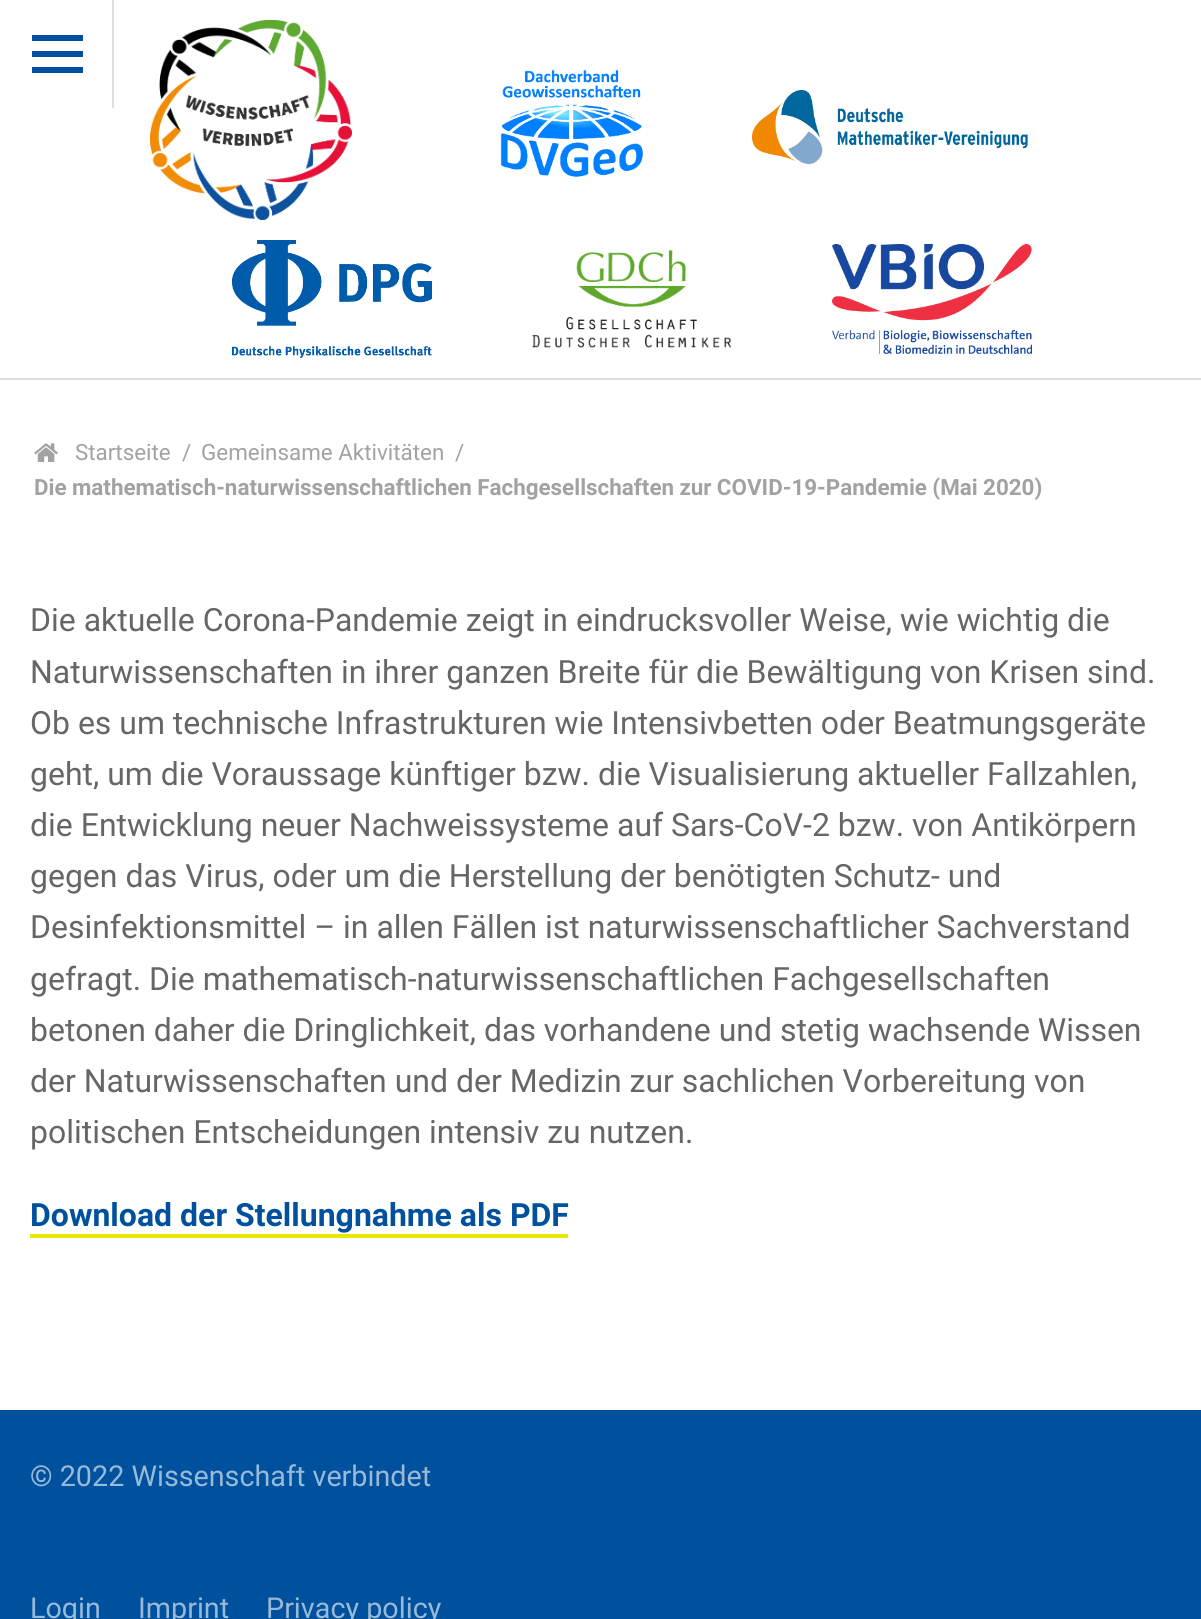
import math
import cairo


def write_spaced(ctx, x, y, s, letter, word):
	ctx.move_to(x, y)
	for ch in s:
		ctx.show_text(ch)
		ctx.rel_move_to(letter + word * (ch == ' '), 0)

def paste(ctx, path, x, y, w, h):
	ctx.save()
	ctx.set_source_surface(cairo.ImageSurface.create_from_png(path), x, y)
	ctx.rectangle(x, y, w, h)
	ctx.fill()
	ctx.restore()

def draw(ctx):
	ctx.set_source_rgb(1, 1, 1)
	ctx.paint()
	ctx.set_source_rgb(0.875, 0.875, 0.875)
	ctx.rectangle(0, 378, 1201, 2)
	ctx.rectangle(112, 0, 2, 108)
	ctx.fill()
	ctx.set_source_rgb(0, 0.318, 0.616)
	ctx.rectangle(32, 35, 51, 6)
	ctx.rectangle(32, 51, 51, 6)
	ctx.rectangle(32, 67, 51, 6)
	ctx.fill()
	paste(ctx, 'media/1.png', 150, 20, 202, 200)
	paste(ctx, 'media/2.png', 500, 70, 143, 107)
	paste(ctx, 'media/3.png', 752, 90, 276, 75)
	paste(ctx, 'media/4.png', 232, 240, 200, 118)
	paste(ctx, 'media/5.png', 532, 250, 200, 98)
	paste(ctx, 'media/6.png', 832, 244, 200, 110)
	paste(ctx, 'media/7.png', 34, 443, 24, 19)
	ctx.select_font_face('Roboto')
	ctx.set_font_size(22.4)
	ctx.set_source_rgb(0.635, 0.635, 0.635)
	for x, y, s in [
		(75, 460, 'Startseite'),
		(182, 460, '/'),
		(201, 460, 'Gemeinsame Aktivitäten'),
		(455, 460, '/'),
	]:
		ctx.move_to(x, y)
		ctx.show_text(s)
	ctx.select_font_face('Roboto', cairo.FONT_SLANT_NORMAL, cairo.FONT_WEIGHT_BOLD)
	write_spaced(ctx, 34, 495, 'Die mathematisch-naturwissenschaftlichen Fachgesellschaften zur COVID-19-Pandemie (Mai 2020)', 0, -0.25)
	ctx.select_font_face('Roboto')
	ctx.set_font_size(32)
	ctx.set_source_rgb(0.4, 0.4, 0.4)
	for x, y, s in [
		(30, 631, 'Die aktuelle Corona-Pandemie zeigt in eindrucksvoller Weise, wie wichtig die'),
		(30, 683, 'Naturwissenschaften in ihrer ganzen Breite für die Bewältigung von Krisen sind.'),
		(30, 734, 'Ob es um technische Infrastrukturen wie Intensivbetten oder Beatmungsgeräte'),
		(30, 785, 'geht, um die Voraussage künftiger bzw. die Visualisierung aktueller Fallzahlen,'),
		(30, 836, 'die Entwicklung neuer Nachweissysteme auf Sars-CoV-2 bzw. von Antikörpern'),
		(30, 887, 'gegen das Virus, oder um die Herstellung der benötigten Schutz- und'),
		(30, 938, 'Desinfektionsmittel – in allen Fällen ist naturwissenschaftlicher Sachverstand'),
		(30, 990, 'gefragt. Die mathematisch-naturwissenschaftlichen Fachgesellschaften'),
		(30, 1041, 'betonen daher die Dringlichkeit, das vorhandene und stetig wachsende Wissen'),
		(30, 1092, 'der Naturwissenschaften und der Medizin zur sachlichen Vorbereitung von'),
		(30, 1143, 'politischen Entscheidungen intensiv zu nutzen.'),
	]:
		ctx.move_to(x, y)
		ctx.show_text(s)
	ctx.select_font_face('Roboto', cairo.FONT_SLANT_NORMAL, cairo.FONT_WEIGHT_BOLD)
	ctx.set_source_rgb(0, 0.318, 0.616)
	ctx.move_to(30, 1226)
	ctx.show_text('Download der Stellungnahme als PDF')
	ctx.set_source_rgb(0.91, 0.914, 0)
	ctx.rectangle(30, 1234, 538, 4)
	ctx.fill()
	ctx.set_source_rgb(0, 0.318, 0.616)
	ctx.rectangle(0, 1410, 1201, 209)
	ctx.fill()
	ctx.select_font_face('Roboto')
	ctx.set_font_size(28.75)
	ctx.set_source_rgb(0.6, 0.725, 0.847)
	for x, y, s in [
		(30, 1486, '© 2022 Wissenschaft verbindet'),
		(30, 1618, 'Login'),
		(138, 1618, 'Imprint'),
		(266, 1618, 'Privacy policy'),
	]:
		ctx.move_to(x, y)
		ctx.show_text(s)


surface = cairo.ImageSurface(cairo.FORMAT_RGB24, 1201, 1619)
ctx = cairo.Context(surface)
options = cairo.FontOptions()
options.set_hint_metrics(cairo.HINT_METRICS_OFF)
options.set_hint_style(cairo.HINT_STYLE_NONE)
ctx.set_font_options(options)
ctx.set_miter_limit(4)
draw(ctx)
surface.write_to_png('image.png')
